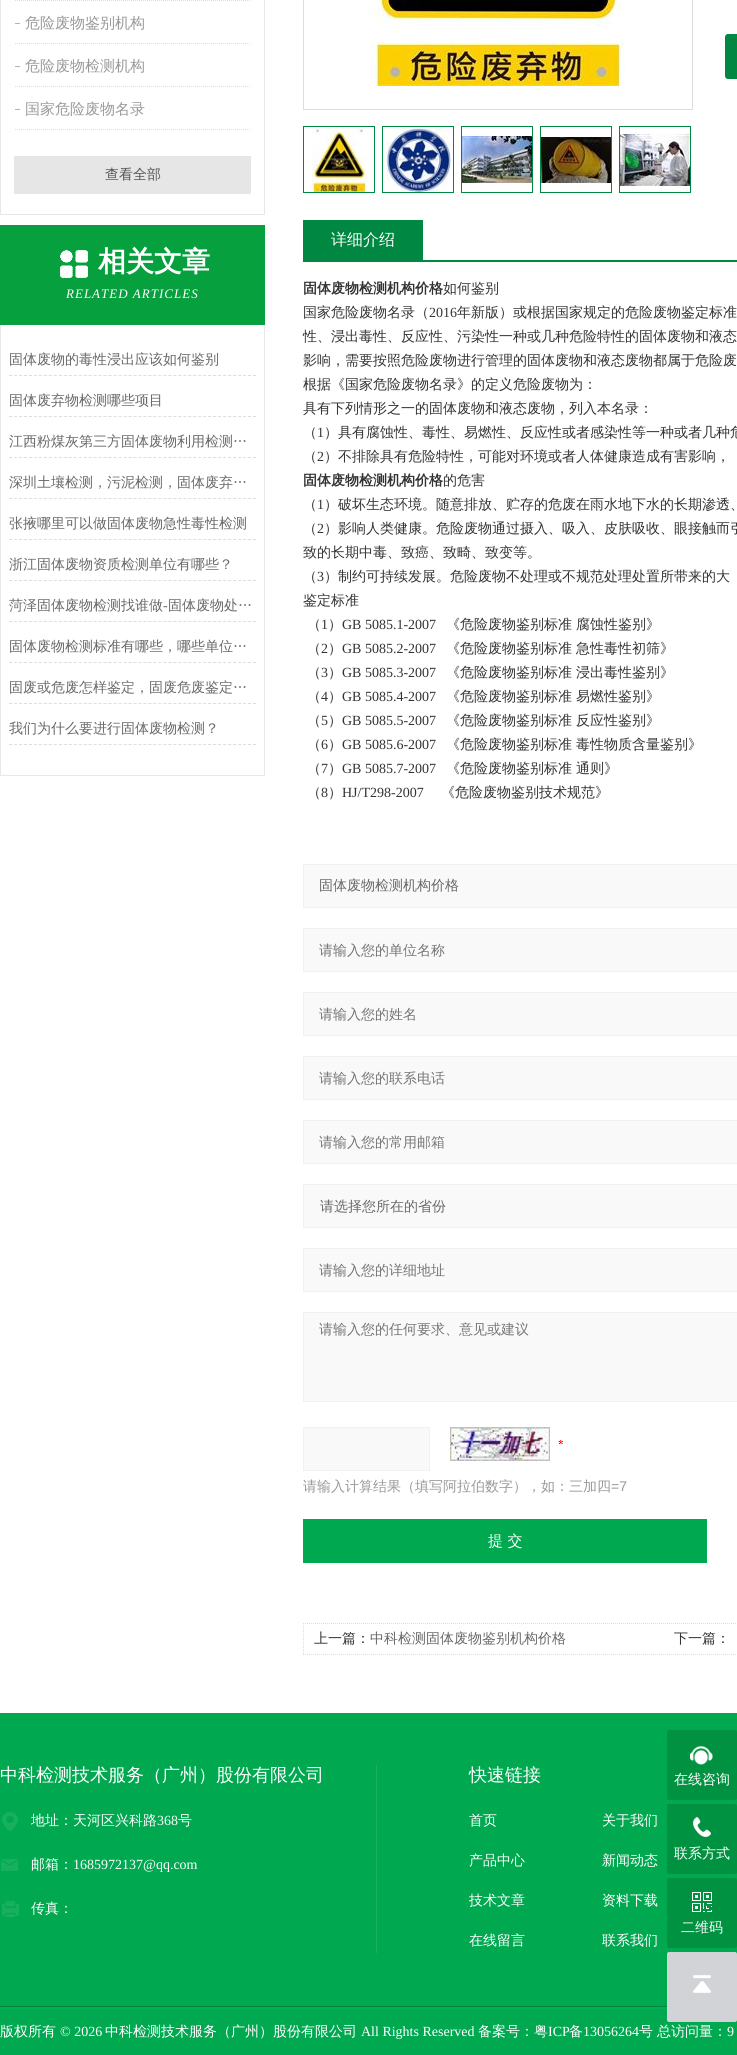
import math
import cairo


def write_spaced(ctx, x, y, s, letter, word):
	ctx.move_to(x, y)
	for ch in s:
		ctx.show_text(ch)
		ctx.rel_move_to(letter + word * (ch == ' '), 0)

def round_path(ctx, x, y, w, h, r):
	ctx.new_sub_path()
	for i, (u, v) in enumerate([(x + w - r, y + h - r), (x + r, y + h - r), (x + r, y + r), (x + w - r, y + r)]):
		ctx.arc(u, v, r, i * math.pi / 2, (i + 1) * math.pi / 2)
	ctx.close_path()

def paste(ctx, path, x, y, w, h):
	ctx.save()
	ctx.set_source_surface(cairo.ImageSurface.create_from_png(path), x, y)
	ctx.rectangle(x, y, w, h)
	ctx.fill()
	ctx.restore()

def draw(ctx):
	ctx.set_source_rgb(1, 1, 1)
	ctx.paint()
	ctx.set_source_rgb(0.91, 0.91, 0.91)
	ctx.rectangle(264, 0, 1, 215)
	ctx.rectangle(0, 214, 265, 1)
	ctx.rectangle(0, 0, 1, 215)
	ctx.fill()
	ctx.new_path()
	ctx.move_to(15, 0.5)
	ctx.line_to(250, 0.5)
	ctx.set_source_rgb(0.871, 0.871, 0.871)
	ctx.set_line_width(1)
	ctx.set_dash([1, 1])
	ctx.stroke()
	ctx.new_path()
	ctx.move_to(15, 43.5)
	ctx.line_to(250, 43.5)
	ctx.stroke()
	ctx.set_source_rgb(0.702, 0.702, 0.702)
	ctx.rectangle(15, 23, 5, 1)
	ctx.fill()
	ctx.select_font_face('WenQuanYi Zen Hei Medium')
	ctx.set_font_size(15)
	ctx.set_source_rgb(0.6, 0.6, 0.6)
	ctx.move_to(25, 28)
	ctx.show_text('危险废物鉴别机构')
	ctx.new_path()
	ctx.move_to(15, 86.5)
	ctx.line_to(250, 86.5)
	ctx.set_source_rgb(0.871, 0.871, 0.871)
	ctx.stroke()
	ctx.set_source_rgb(0.702, 0.702, 0.702)
	ctx.rectangle(15, 66, 5, 1)
	ctx.fill()
	ctx.set_source_rgb(0.6, 0.6, 0.6)
	ctx.move_to(25, 71)
	ctx.show_text('危险废物检测机构')
	ctx.new_path()
	ctx.move_to(15, 129.5)
	ctx.line_to(250, 129.5)
	ctx.set_source_rgb(0.871, 0.871, 0.871)
	ctx.stroke()
	ctx.set_source_rgb(0.702, 0.702, 0.702)
	ctx.rectangle(15, 109, 5, 1)
	ctx.fill()
	ctx.set_source_rgb(0.6, 0.6, 0.6)
	ctx.move_to(25, 114)
	ctx.show_text('国家危险废物名录')
	ctx.set_source_rgb(0.902, 0.902, 0.902)
	ctx.rectangle(14, 156, 237, 38)
	ctx.fill()
	ctx.set_font_size(14)
	ctx.set_source_rgb(0.333, 0.333, 0.333)
	ctx.move_to(105, 179)
	ctx.show_text('查看全部')
	ctx.set_source_rgb(0.024, 0.627, 0.243)
	ctx.rectangle(0, 225, 265, 100)
	ctx.fill()
	paste(ctx, 'media/1.png', 60, 250, 28, 28)
	ctx.select_font_face('WenQuanYi Zen Hei', cairo.FONT_SLANT_NORMAL, cairo.FONT_WEIGHT_BOLD)
	ctx.set_font_size(28)
	ctx.set_source_rgb(1, 1, 1)
	ctx.move_to(98, 271)
	ctx.show_text('相关文章')
	ctx.select_font_face('Liberation Serif', cairo.FONT_SLANT_ITALIC)
	ctx.set_font_size(13)
	write_spaced(ctx, 66, 298, 'RELATED ARTICLES', 1, 0)
	ctx.set_source_rgb(0.91, 0.91, 0.91)
	ctx.rectangle(264, 325, 1, 451)
	ctx.rectangle(0, 775, 265, 1)
	ctx.rectangle(0, 325, 1, 451)
	ctx.fill()
	ctx.new_path()
	ctx.move_to(9, 375.5)
	ctx.line_to(256, 375.5)
	ctx.set_source_rgb(0.871, 0.871, 0.871)
	ctx.set_dash([3, 1.98])
	ctx.stroke()
	ctx.select_font_face('WenQuanYi Zen Hei Medium')
	ctx.set_font_size(14)
	ctx.set_source_rgb(0.408, 0.408, 0.408)
	ctx.move_to(9, 364)
	ctx.show_text('固体废物的毒性浸出应该如何鉴别')
	ctx.new_path()
	ctx.move_to(9, 416.5)
	ctx.line_to(256, 416.5)
	ctx.set_source_rgb(0.871, 0.871, 0.871)
	ctx.stroke()
	ctx.set_source_rgb(0.408, 0.408, 0.408)
	ctx.move_to(9, 405)
	ctx.show_text('固体废弃物检测哪些项目')
	ctx.new_path()
	ctx.move_to(9, 457.5)
	ctx.line_to(256, 457.5)
	ctx.set_source_rgb(0.871, 0.871, 0.871)
	ctx.stroke()
	ctx.set_source_rgb(0.408, 0.408, 0.408)
	ctx.move_to(9, 446)
	ctx.show_text('江西粉煤灰第三方固体废物利用检测…')
	ctx.new_path()
	ctx.move_to(9, 498.5)
	ctx.line_to(256, 498.5)
	ctx.set_source_rgb(0.871, 0.871, 0.871)
	ctx.stroke()
	ctx.set_source_rgb(0.408, 0.408, 0.408)
	ctx.move_to(9, 487)
	ctx.show_text('深圳土壤检测，污泥检测，固体废弃…')
	ctx.new_path()
	ctx.move_to(9, 539.5)
	ctx.line_to(256, 539.5)
	ctx.set_source_rgb(0.871, 0.871, 0.871)
	ctx.stroke()
	ctx.set_source_rgb(0.408, 0.408, 0.408)
	ctx.move_to(9, 528)
	ctx.show_text('张掖哪里可以做固体废物急性毒性检测')
	ctx.new_path()
	ctx.move_to(9, 580.5)
	ctx.line_to(256, 580.5)
	ctx.set_source_rgb(0.871, 0.871, 0.871)
	ctx.stroke()
	ctx.set_source_rgb(0.408, 0.408, 0.408)
	ctx.move_to(9, 569)
	ctx.show_text('浙江固体废物资质检测单位有哪些？')
	ctx.new_path()
	ctx.move_to(9, 621.5)
	ctx.line_to(256, 621.5)
	ctx.set_source_rgb(0.871, 0.871, 0.871)
	ctx.stroke()
	ctx.set_source_rgb(0.408, 0.408, 0.408)
	ctx.move_to(9, 610)
	ctx.show_text('菏泽固体废物检测找谁做')
	ctx.select_font_face('Liberation Serif')
	ctx.move_to(163, 610)
	ctx.show_text('-')
	ctx.select_font_face('WenQuanYi Zen Hei Medium')
	ctx.move_to(168, 610)
	ctx.show_text('固体废物处…')
	ctx.new_path()
	ctx.move_to(9, 662.5)
	ctx.line_to(256, 662.5)
	ctx.set_source_rgb(0.871, 0.871, 0.871)
	ctx.stroke()
	ctx.set_source_rgb(0.408, 0.408, 0.408)
	ctx.move_to(9, 651)
	ctx.show_text('固体废物检测标准有哪些，哪些单位…')
	ctx.new_path()
	ctx.move_to(9, 703.5)
	ctx.line_to(256, 703.5)
	ctx.set_source_rgb(0.871, 0.871, 0.871)
	ctx.stroke()
	ctx.set_source_rgb(0.408, 0.408, 0.408)
	ctx.move_to(9, 692)
	ctx.show_text('固废或危废怎样鉴定，固废危废鉴定…')
	ctx.new_path()
	ctx.move_to(9, 744.5)
	ctx.line_to(256, 744.5)
	ctx.set_source_rgb(0.871, 0.871, 0.871)
	ctx.stroke()
	ctx.set_source_rgb(0.408, 0.408, 0.408)
	ctx.move_to(9, 733)
	ctx.show_text('我们为什么要进行固体废物检测？')
	ctx.rectangle(303.5, -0.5, 389, 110)
	ctx.set_source_rgb(0.867, 0.867, 0.867)
	ctx.set_dash([])
	ctx.stroke()
	paste(ctx, 'media/2.png', 371, 0, 254, 86)
	ctx.rectangle(303.5, 126.5, 71, 66)
	ctx.set_source_rgb(0, 0.529, 0.259)
	ctx.stroke()
	paste(ctx, 'media/3.png', 312, 127, 54, 65)
	ctx.rectangle(382.5, 126.5, 71, 66)
	ctx.stroke()
	paste(ctx, 'media/4.png', 386, 127, 65, 65)
	ctx.rectangle(461.5, 126.5, 71, 66)
	ctx.stroke()
	paste(ctx, 'media/5.png', 462, 136, 70, 47)
	ctx.rectangle(540.5, 126.5, 71, 66)
	ctx.stroke()
	paste(ctx, 'media/6.png', 541, 137, 70, 46)
	ctx.rectangle(619.5, 126.5, 71, 66)
	ctx.stroke()
	paste(ctx, 'media/7.png', 620, 134, 70, 52)
	round_path(ctx, 725, 34, 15, 45, 3)
	ctx.fill()
	ctx.rectangle(303, 260, 434, 2)
	ctx.fill()
	ctx.rectangle(303, 220, 120, 40)
	ctx.fill()
	ctx.set_font_size(16)
	ctx.set_source_rgb(1, 1, 1)
	ctx.move_to(331, 245)
	ctx.show_text('详细介绍')
	ctx.select_font_face('WenQuanYi Zen Hei', cairo.FONT_SLANT_NORMAL, cairo.FONT_WEIGHT_BOLD)
	ctx.set_font_size(14)
	ctx.set_source_rgb(0.2, 0.2, 0.2)
	ctx.move_to(303, 293)
	ctx.show_text('固体废物检测机构价格')
	ctx.select_font_face('WenQuanYi Zen Hei Medium')
	ctx.move_to(443, 293)
	ctx.show_text('如何鉴别')
	ctx.move_to(303, 317)
	ctx.show_text('国家危险废物名录（')
	ctx.select_font_face('Liberation Serif')
	ctx.move_to(429, 317)
	ctx.show_text('2016')
	ctx.select_font_face('WenQuanYi Zen Hei Medium')
	for x, y, s in [
		(457, 317, '年新版）或根据国家规定的危险废物鉴定标准'),
		(303, 341, '性、浸出毒性、反应性、污染性一种或几种危险特性的固体废物和液态'),
		(303, 365, '影响，需要按照危险废物进行管理的固体废物和液态废物都属于危险废'),
		(303, 389, '根据《国家危险废物名录》的定义危险废物为：'),
		(303, 413, '具有下列情形之一的固体废物和液态废物，列入本名录：'),
		(303, 437, '（'),
	]:
		ctx.move_to(x, y)
		ctx.show_text(s)
	ctx.select_font_face('Liberation Serif')
	ctx.move_to(317, 437)
	ctx.show_text('1')
	ctx.select_font_face('WenQuanYi Zen Hei Medium')
	ctx.move_to(324, 437)
	ctx.show_text('）具有腐蚀性、毒性、易燃性、反应性或者感染性等一种或者几种危')
	ctx.move_to(303, 461)
	ctx.show_text('（')
	ctx.select_font_face('Liberation Serif')
	ctx.move_to(317, 461)
	ctx.show_text('2')
	ctx.select_font_face('WenQuanYi Zen Hei Medium')
	ctx.move_to(324, 461)
	ctx.show_text('）不排除具有危险特性，可能对环境或者人体健康造成有害影响，')
	ctx.select_font_face('WenQuanYi Zen Hei', cairo.FONT_SLANT_NORMAL, cairo.FONT_WEIGHT_BOLD)
	ctx.move_to(303, 485)
	ctx.show_text('固体废物检测机构价格')
	ctx.select_font_face('WenQuanYi Zen Hei Medium')
	ctx.move_to(443, 485)
	ctx.show_text('的危害')
	ctx.move_to(303, 509)
	ctx.show_text('（')
	ctx.select_font_face('Liberation Serif')
	ctx.move_to(317, 509)
	ctx.show_text('1')
	ctx.select_font_face('WenQuanYi Zen Hei Medium')
	ctx.move_to(324, 509)
	ctx.show_text('）破坏生态环境。随意排放、贮存的危废在雨水地下水的长期渗透、')
	ctx.move_to(303, 533)
	ctx.show_text('（')
	ctx.select_font_face('Liberation Serif')
	ctx.move_to(317, 533)
	ctx.show_text('2')
	ctx.select_font_face('WenQuanYi Zen Hei Medium')
	for x, y, s in [
		(324, 533, '）影响人类健康。危险废物通过摄入、吸入、皮肤吸收、眼接触而引'),
		(303, 557, '致的长期中毒、致癌、致畸、致变等。'),
		(303, 581, '（'),
	]:
		ctx.move_to(x, y)
		ctx.show_text(s)
	ctx.select_font_face('Liberation Serif')
	ctx.move_to(317, 581)
	ctx.show_text('3')
	ctx.select_font_face('WenQuanYi Zen Hei Medium')
	for x, y, s in [
		(324, 581, '）制约可持续发展。危险废物不处理或不规范处理处置所带来的大'),
		(303, 605, '鉴定标准'),
		(307, 629, '（'),
	]:
		ctx.move_to(x, y)
		ctx.show_text(s)
	ctx.select_font_face('Liberation Serif')
	ctx.move_to(321, 629)
	ctx.show_text('1')
	ctx.select_font_face('WenQuanYi Zen Hei Medium')
	ctx.move_to(328, 629)
	ctx.show_text('）')
	ctx.select_font_face('Liberation Serif')
	ctx.move_to(342, 629)
	ctx.show_text('GB 5085.1-2007')
	ctx.select_font_face('WenQuanYi Zen Hei Medium')
	for x, y, s in [
		(446, 629, '《危险废物鉴别标准'),
		(576, 629, '腐蚀性鉴别》'),
		(307, 653, '（'),
	]:
		ctx.move_to(x, y)
		ctx.show_text(s)
	ctx.select_font_face('Liberation Serif')
	ctx.move_to(321, 653)
	ctx.show_text('2')
	ctx.select_font_face('WenQuanYi Zen Hei Medium')
	ctx.move_to(328, 653)
	ctx.show_text('）')
	ctx.select_font_face('Liberation Serif')
	ctx.move_to(342, 653)
	ctx.show_text('GB 5085.2-2007')
	ctx.select_font_face('WenQuanYi Zen Hei Medium')
	for x, y, s in [
		(446, 653, '《危险废物鉴别标准'),
		(576, 653, '急性毒性初筛》'),
		(307, 677, '（'),
	]:
		ctx.move_to(x, y)
		ctx.show_text(s)
	ctx.select_font_face('Liberation Serif')
	ctx.move_to(321, 677)
	ctx.show_text('3')
	ctx.select_font_face('WenQuanYi Zen Hei Medium')
	ctx.move_to(328, 677)
	ctx.show_text('）')
	ctx.select_font_face('Liberation Serif')
	ctx.move_to(342, 677)
	ctx.show_text('GB 5085.3-2007')
	ctx.select_font_face('WenQuanYi Zen Hei Medium')
	for x, y, s in [
		(446, 677, '《危险废物鉴别标准'),
		(576, 677, '浸出毒性鉴别》'),
		(307, 701, '（'),
	]:
		ctx.move_to(x, y)
		ctx.show_text(s)
	ctx.select_font_face('Liberation Serif')
	ctx.move_to(321, 701)
	ctx.show_text('4')
	ctx.select_font_face('WenQuanYi Zen Hei Medium')
	ctx.move_to(328, 701)
	ctx.show_text('）')
	ctx.select_font_face('Liberation Serif')
	ctx.move_to(342, 701)
	ctx.show_text('GB 5085.4-2007')
	ctx.select_font_face('WenQuanYi Zen Hei Medium')
	for x, y, s in [
		(446, 701, '《危险废物鉴别标准'),
		(576, 701, '易燃性鉴别》'),
		(307, 725, '（'),
	]:
		ctx.move_to(x, y)
		ctx.show_text(s)
	ctx.select_font_face('Liberation Serif')
	ctx.move_to(321, 725)
	ctx.show_text('5')
	ctx.select_font_face('WenQuanYi Zen Hei Medium')
	ctx.move_to(328, 725)
	ctx.show_text('）')
	ctx.select_font_face('Liberation Serif')
	ctx.move_to(342, 725)
	ctx.show_text('GB 5085.5-2007')
	ctx.select_font_face('WenQuanYi Zen Hei Medium')
	for x, y, s in [
		(446, 725, '《危险废物鉴别标准'),
		(576, 725, '反应性鉴别》'),
		(307, 749, '（'),
	]:
		ctx.move_to(x, y)
		ctx.show_text(s)
	ctx.select_font_face('Liberation Serif')
	ctx.move_to(321, 749)
	ctx.show_text('6')
	ctx.select_font_face('WenQuanYi Zen Hei Medium')
	ctx.move_to(328, 749)
	ctx.show_text('）')
	ctx.select_font_face('Liberation Serif')
	ctx.move_to(342, 749)
	ctx.show_text('GB 5085.6-2007')
	ctx.select_font_face('WenQuanYi Zen Hei Medium')
	for x, y, s in [
		(446, 749, '《危险废物鉴别标准'),
		(576, 749, '毒性物质含量鉴别》'),
		(307, 773, '（'),
	]:
		ctx.move_to(x, y)
		ctx.show_text(s)
	ctx.select_font_face('Liberation Serif')
	ctx.move_to(321, 773)
	ctx.show_text('7')
	ctx.select_font_face('WenQuanYi Zen Hei Medium')
	ctx.move_to(328, 773)
	ctx.show_text('）')
	ctx.select_font_face('Liberation Serif')
	ctx.move_to(342, 773)
	ctx.show_text('GB 5085.7-2007')
	ctx.select_font_face('WenQuanYi Zen Hei Medium')
	for x, y, s in [
		(446, 773, '《危险废物鉴别标准'),
		(576, 773, '通则》'),
		(307, 797, '（'),
	]:
		ctx.move_to(x, y)
		ctx.show_text(s)
	ctx.select_font_face('Liberation Serif')
	ctx.move_to(321, 797)
	ctx.show_text('8')
	ctx.select_font_face('WenQuanYi Zen Hei Medium')
	ctx.move_to(328, 797)
	ctx.show_text('）')
	ctx.select_font_face('Liberation Serif')
	ctx.move_to(342, 797)
	ctx.show_text('HJ/T298-2007')
	ctx.select_font_face('WenQuanYi Zen Hei Medium')
	ctx.move_to(441, 797)
	ctx.show_text('《危险废物鉴别技术规范》')
	ctx.set_source_rgb(0.973, 0.973, 0.973)
	ctx.rectangle(303.5, 864.5, 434, 43)
	ctx.fill_preserve()
	ctx.set_source_rgb(0.945, 0.945, 0.945)
	ctx.stroke()
	ctx.set_source_rgb(0.408, 0.408, 0.408)
	ctx.move_to(319, 890)
	ctx.show_text('固体废物检测机构价格')
	ctx.set_source_rgb(0.973, 0.973, 0.973)
	ctx.rectangle(303.5, 928.5, 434, 43)
	ctx.fill_preserve()
	ctx.set_source_rgb(0.945, 0.945, 0.945)
	ctx.stroke()
	ctx.set_source_rgb(0.459, 0.459, 0.459)
	ctx.move_to(319, 955)
	ctx.show_text('请输入您的单位名称')
	ctx.set_source_rgb(0.973, 0.973, 0.973)
	ctx.rectangle(303.5, 992.5, 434, 43)
	ctx.fill_preserve()
	ctx.set_source_rgb(0.945, 0.945, 0.945)
	ctx.stroke()
	ctx.set_source_rgb(0.459, 0.459, 0.459)
	ctx.move_to(319, 1019)
	ctx.show_text('请输入您的姓名')
	ctx.set_source_rgb(0.973, 0.973, 0.973)
	ctx.rectangle(303.5, 1056.5, 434, 43)
	ctx.fill_preserve()
	ctx.set_source_rgb(0.945, 0.945, 0.945)
	ctx.stroke()
	ctx.set_source_rgb(0.459, 0.459, 0.459)
	ctx.move_to(319, 1083)
	ctx.show_text('请输入您的联系电话')
	ctx.set_source_rgb(0.973, 0.973, 0.973)
	ctx.rectangle(303.5, 1120.5, 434, 43)
	ctx.fill_preserve()
	ctx.set_source_rgb(0.945, 0.945, 0.945)
	ctx.stroke()
	ctx.set_source_rgb(0.459, 0.459, 0.459)
	ctx.move_to(319, 1147)
	ctx.show_text('请输入您的常用邮箱')
	ctx.set_source_rgb(0.973, 0.973, 0.973)
	ctx.rectangle(303.5, 1184.5, 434, 43)
	ctx.fill_preserve()
	ctx.set_source_rgb(0.945, 0.945, 0.945)
	ctx.stroke()
	ctx.set_source_rgb(0.408, 0.408, 0.408)
	ctx.move_to(320, 1211)
	ctx.show_text('请选择您所在的省份')
	ctx.set_source_rgb(0.973, 0.973, 0.973)
	ctx.rectangle(303.5, 1248.5, 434, 43)
	ctx.fill_preserve()
	ctx.set_source_rgb(0.945, 0.945, 0.945)
	ctx.stroke()
	ctx.set_source_rgb(0.459, 0.459, 0.459)
	ctx.move_to(319, 1275)
	ctx.show_text('请输入您的详细地址')
	ctx.set_source_rgb(0.973, 0.973, 0.973)
	ctx.rectangle(303.5, 1312.5, 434, 89)
	ctx.fill_preserve()
	ctx.set_source_rgb(0.945, 0.945, 0.945)
	ctx.stroke()
	ctx.set_source_rgb(0.459, 0.459, 0.459)
	ctx.move_to(319, 1334)
	ctx.show_text('请输入您的任何要求、意见或建议')
	ctx.set_source_rgb(0.973, 0.973, 0.973)
	ctx.rectangle(303.5, 1427.5, 126, 43)
	ctx.fill_preserve()
	ctx.set_source_rgb(0.945, 0.945, 0.945)
	ctx.stroke()
	paste(ctx, 'media/8.png', 558, 1440, 5, 4)
	paste(ctx, 'media/9.png', 450, 1427, 100, 34)
	ctx.set_source_rgb(0.6, 0.6, 0.6)
	ctx.move_to(303, 1491)
	ctx.show_text('请输入计算结果（填写阿拉伯数字），如：三加四')
	ctx.select_font_face('Liberation Sans')
	ctx.move_to(611, 1491)
	ctx.show_text('=7')
	ctx.set_source_rgb(0, 0.659, 0.314)
	ctx.rectangle(303, 1519, 404, 44)
	ctx.fill()
	ctx.select_font_face('WenQuanYi Zen Hei Medium')
	ctx.set_font_size(15)
	ctx.set_source_rgb(1, 1, 1)
	ctx.move_to(488, 1546)
	ctx.show_text('提 交')
	ctx.new_path()
	ctx.move_to(303, 1623.5)
	ctx.line_to(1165, 1623.5)
	ctx.set_source_rgb(0.867, 0.867, 0.867)
	ctx.set_dash([1, 1])
	ctx.stroke()
	ctx.new_path()
	ctx.move_to(303, 1654.5)
	ctx.line_to(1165, 1654.5)
	ctx.stroke()
	ctx.new_path()
	ctx.move_to(303.5, 1623)
	ctx.line_to(303.5, 1655)
	ctx.stroke()
	ctx.set_font_size(14)
	ctx.set_source_rgb(0.2, 0.2, 0.2)
	ctx.move_to(314, 1643)
	ctx.show_text('上一篇：')
	ctx.set_source_rgb(0.408, 0.408, 0.408)
	ctx.move_to(370, 1643)
	ctx.show_text('中科检测固体废物鉴别机构价格')
	ctx.set_source_rgb(0.2, 0.2, 0.2)
	ctx.move_to(674, 1643)
	ctx.show_text('下一篇：')
	ctx.set_source_rgb(0, 0.659, 0.314)
	ctx.rectangle(0, 1713, 737, 342)
	ctx.fill()
	ctx.set_source_rgb(0.004, 0.51, 0.231)
	ctx.rectangle(0, 2006, 667, 1)
	ctx.fill()
	ctx.set_font_size(18)
	ctx.set_source_rgb(1, 1, 1)
	ctx.move_to(0, 1781)
	ctx.show_text('中科检测技术服务（广州）股份有限公司')
	paste(ctx, 'media/10.png', 2, 1812, 16, 19)
	ctx.set_font_size(14)
	ctx.move_to(31, 1825)
	ctx.show_text('地址：天河区兴科路')
	ctx.select_font_face('Liberation Serif')
	ctx.move_to(157, 1825)
	ctx.show_text('368')
	ctx.select_font_face('WenQuanYi Zen Hei Medium')
	ctx.move_to(178, 1825)
	ctx.show_text('号')
	paste(ctx, 'media/11.png', 1, 1859, 17, 12)
	ctx.move_to(31, 1869)
	ctx.show_text('邮箱：')
	ctx.select_font_face('Liberation Serif')
	ctx.move_to(73, 1869)
	ctx.show_text('1685972137@qq.com')
	paste(ctx, 'media/12.png', 2, 1901, 17, 16)
	ctx.select_font_face('WenQuanYi Zen Hei Medium')
	ctx.move_to(31, 1913)
	ctx.show_text('传真：')
	ctx.set_source_rgb(0.102, 0.694, 0.384)
	ctx.rectangle(376, 1765, 1, 188)
	ctx.fill()
	ctx.set_font_size(18)
	ctx.set_source_rgb(1, 1, 1)
	ctx.move_to(469, 1781)
	ctx.show_text('快速链接')
	ctx.set_font_size(14)
	for x, y, s in [
		(469, 1825, '首页'),
		(602, 1825, '关于我们'),
		(469, 1865, '产品中心'),
		(602, 1865, '新闻动态'),
		(469, 1905, '技术文章'),
		(602, 1905, '资料下载'),
		(469, 1945, '在线留言'),
		(602, 1945, '联系我们'),
	]:
		ctx.move_to(x, y)
		ctx.show_text(s)
	ctx.set_source_rgb(0.008, 0.694, 0.333)
	ctx.rectangle(0, 2007, 667, 2)
	ctx.fill()
	ctx.set_source_rgb(1, 1, 1)
	ctx.move_to(0, 2036)
	ctx.show_text('版权所有')
	ctx.select_font_face('Liberation Serif')
	ctx.move_to(60, 2036)
	ctx.show_text('© 2026')
	ctx.select_font_face('WenQuanYi Zen Hei Medium')
	ctx.move_to(105, 2036)
	ctx.show_text('中科检测技术服务（广州）股份有限公司')
	ctx.select_font_face('Liberation Serif')
	ctx.move_to(361, 2036)
	ctx.show_text('All Rights Reserved')
	ctx.select_font_face('WenQuanYi Zen Hei Medium')
	ctx.move_to(478, 2036)
	ctx.show_text('备案号：粤')
	ctx.select_font_face('Liberation Serif')
	ctx.move_to(548, 2036)
	ctx.show_text('ICP')
	ctx.select_font_face('WenQuanYi Zen Hei Medium')
	ctx.move_to(569, 2036)
	ctx.show_text('备')
	ctx.select_font_face('Liberation Serif')
	ctx.move_to(583, 2036)
	ctx.show_text('13056264')
	ctx.select_font_face('WenQuanYi Zen Hei Medium')
	ctx.move_to(639, 2036)
	ctx.show_text('号')
	ctx.move_to(657, 2036)
	ctx.show_text('总访问量：')
	ctx.select_font_face('Liberation Serif')
	ctx.move_to(727, 2036)
	ctx.show_text('9')
	ctx.set_source_rgb(0, 0.573, 0.251)
	round_path(ctx, 667, 1730, 70, 70, 2)
	ctx.fill()
	paste(ctx, 'media/13.png', 690, 1746, 23, 19)
	ctx.select_font_face('WenQuanYi Zen Hei Medium')
	ctx.set_source_rgb(1, 1, 1)
	ctx.move_to(674, 1784)
	ctx.show_text('在线咨询')
	ctx.set_source_rgb(0, 0.573, 0.251)
	round_path(ctx, 667, 1804, 70, 70, 2)
	ctx.fill()
	paste(ctx, 'media/14.png', 693, 1817, 18, 20)
	ctx.set_source_rgb(1, 1, 1)
	ctx.move_to(674, 1858)
	ctx.show_text('联系方式')
	ctx.set_source_rgb(0, 0.573, 0.251)
	round_path(ctx, 667, 1878, 70, 70, 2)
	ctx.fill()
	paste(ctx, 'media/15.png', 692, 1892, 20, 20)
	ctx.set_source_rgb(1, 1, 1)
	ctx.move_to(681, 1932)
	ctx.show_text('二维码')
	ctx.set_source_rgb(0.824, 0.827, 0.839)
	round_path(ctx, 667, 1952, 70, 70, 2)
	ctx.fill()
	paste(ctx, 'media/16.png', 693, 1975, 18, 18)


surface = cairo.ImageSurface(cairo.FORMAT_RGB24, 737, 2055)
ctx = cairo.Context(surface)
options = cairo.FontOptions()
options.set_hint_metrics(cairo.HINT_METRICS_OFF)
options.set_hint_style(cairo.HINT_STYLE_NONE)
ctx.set_font_options(options)
ctx.set_miter_limit(4)
draw(ctx)
surface.write_to_png('image.png')
